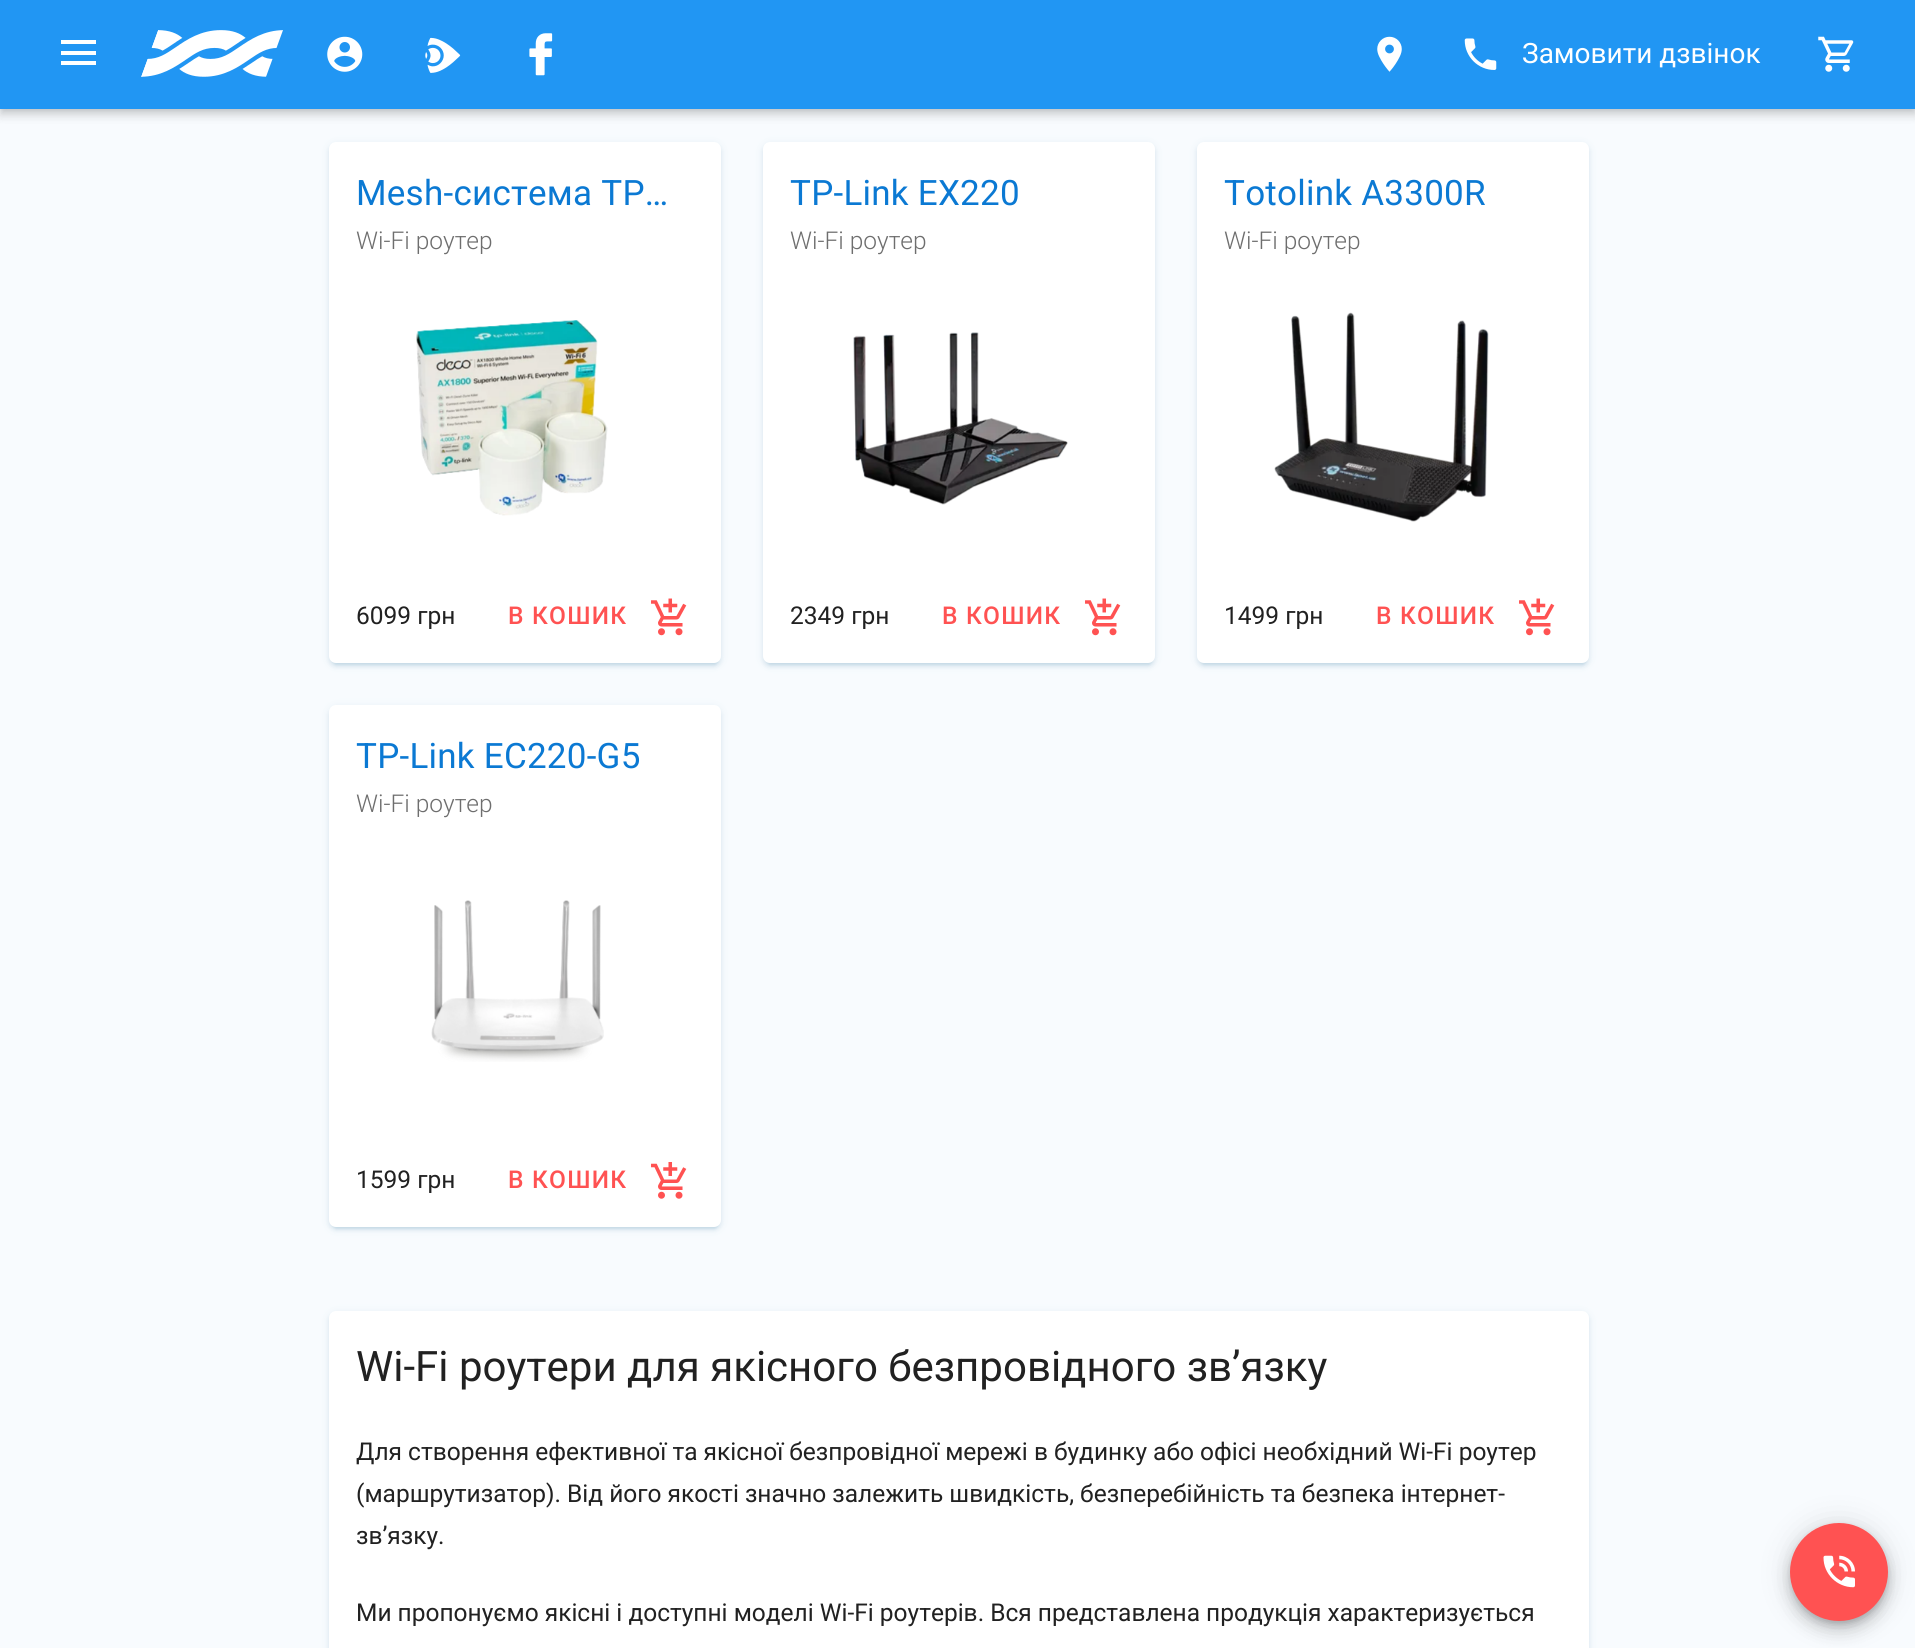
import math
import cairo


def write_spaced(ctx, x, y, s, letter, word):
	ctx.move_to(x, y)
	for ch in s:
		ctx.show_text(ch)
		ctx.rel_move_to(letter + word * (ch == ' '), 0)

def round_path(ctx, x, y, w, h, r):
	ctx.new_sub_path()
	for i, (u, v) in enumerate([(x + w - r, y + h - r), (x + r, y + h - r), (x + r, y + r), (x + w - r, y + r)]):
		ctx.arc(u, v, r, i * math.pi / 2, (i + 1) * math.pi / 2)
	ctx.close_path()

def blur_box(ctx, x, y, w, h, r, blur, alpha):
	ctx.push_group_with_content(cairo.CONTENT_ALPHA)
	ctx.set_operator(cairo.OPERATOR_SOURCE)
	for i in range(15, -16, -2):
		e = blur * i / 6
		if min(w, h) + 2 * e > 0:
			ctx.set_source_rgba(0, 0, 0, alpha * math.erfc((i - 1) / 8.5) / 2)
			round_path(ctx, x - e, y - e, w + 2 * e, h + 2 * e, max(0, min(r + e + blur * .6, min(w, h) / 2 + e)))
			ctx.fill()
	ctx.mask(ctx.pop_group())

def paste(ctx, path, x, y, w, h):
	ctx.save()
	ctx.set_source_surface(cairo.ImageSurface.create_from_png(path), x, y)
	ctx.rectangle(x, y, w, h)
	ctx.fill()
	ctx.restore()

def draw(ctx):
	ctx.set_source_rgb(0.969, 0.984, 0.996)
	ctx.paint()
	ctx.set_source_rgb(0, 0, 0)
	blur_box(ctx, 0, 2, 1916, 108, 0, 9, 0.08)
	blur_box(ctx, 0, 7, 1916, 109, 0, 4.5, 0.1)
	blur_box(ctx, 2, 5, 1913, 105, 0, 3.5, 0.14)
	ctx.set_source_rgb(0.129, 0.588, 0.953)
	ctx.rectangle(0, 0, 1915, 109)
	ctx.fill()
	ctx.set_source_rgb(1, 1, 1)
	ctx.rectangle(61, 51, 35, 4)
	ctx.rectangle(61, 40, 35, 4)
	ctx.rectangle(61, 61, 35, 4)
	ctx.fill()
	paste(ctx, 'media/1.png', 141, 30, 142, 47)
	paste(ctx, 'media/2.png', 327, 36, 36, 36)
	paste(ctx, 'media/3.png', 425, 37, 36, 36)
	paste(ctx, 'media/4.png', 529, 33, 24, 43)
	paste(ctx, 'media/5.png', 1377, 36, 25, 36)
	paste(ctx, 'media/6.png', 1464, 38, 33, 32)
	ctx.select_font_face('Roboto')
	ctx.set_font_size(28)
	ctx.move_to(1522, 63)
	ctx.show_text('Замовити дзвінок')
	paste(ctx, 'media/7.png', 1818, 36, 36, 36)
	ctx.set_source_rgb(0.624, 0.757, 0.831)
	blur_box(ctx, 329, 144, 392, 521, 7, 4.5, 0.22)
	blur_box(ctx, 329, 145, 392, 522, 7, 2, 0.24)
	blur_box(ctx, 333, 151, 385, 514, 4, 1, 0.3)
	ctx.set_source_rgb(1, 1, 1)
	round_path(ctx, 329, 142, 392, 521, 7)
	ctx.fill()
	ctx.set_font_size(35)
	ctx.set_source_rgb(0.043, 0.475, 0.827)
	write_spaced(ctx, 356, 205, 'Mesh-система TP…', 0.25, 0)
	ctx.select_font_face('Roboto Light')
	ctx.set_font_size(24.5)
	ctx.set_source_rgb(0.431, 0.431, 0.431)
	ctx.move_to(356, 249)
	ctx.show_text('Wi-Fi роутер')
	paste(ctx, 'media/8.png', 416, 320, 192, 196)
	ctx.select_font_face('Roboto')
	ctx.set_source_rgb(0.129, 0.129, 0.129)
	ctx.move_to(356, 624)
	ctx.show_text('6099 грн')
	ctx.select_font_face('Roboto Medium')
	ctx.set_source_rgb(1, 0.322, 0.322)
	write_spaced(ctx, 508, 624, 'В КОШИК', 1.25, 0)
	paste(ctx, 'media/9.png', 651, 598, 36, 38)
	ctx.set_source_rgb(0.624, 0.757, 0.831)
	blur_box(ctx, 763, 144, 392, 521, 7, 4.5, 0.22)
	blur_box(ctx, 763, 145, 392, 522, 7, 2, 0.24)
	blur_box(ctx, 767, 151, 385, 514, 4, 1, 0.3)
	ctx.set_source_rgb(1, 1, 1)
	round_path(ctx, 763, 142, 392, 521, 7)
	ctx.fill()
	ctx.select_font_face('Roboto')
	ctx.set_font_size(35)
	ctx.set_source_rgb(0.043, 0.475, 0.827)
	write_spaced(ctx, 790, 205, 'TP-Link EX220', 0.25, 0)
	ctx.select_font_face('Roboto Light')
	ctx.set_font_size(24.5)
	ctx.set_source_rgb(0.431, 0.431, 0.431)
	ctx.move_to(790, 249)
	ctx.show_text('Wi-Fi роутер')
	paste(ctx, 'media/10.png', 853, 332, 215, 173)
	ctx.select_font_face('Roboto')
	ctx.set_source_rgb(0.129, 0.129, 0.129)
	ctx.move_to(790, 624)
	ctx.show_text('2349 грн')
	ctx.select_font_face('Roboto Medium')
	ctx.set_source_rgb(1, 0.322, 0.322)
	write_spaced(ctx, 942, 624, 'В КОШИК', 1.25, 0)
	paste(ctx, 'media/9.png', 1085, 598, 36, 38)
	ctx.set_source_rgb(0.624, 0.757, 0.831)
	blur_box(ctx, 1197, 144, 392, 521, 7, 4.5, 0.22)
	blur_box(ctx, 1197, 145, 392, 522, 7, 2, 0.24)
	blur_box(ctx, 1201, 151, 385, 514, 4, 1, 0.3)
	ctx.set_source_rgb(1, 1, 1)
	round_path(ctx, 1197, 142, 392, 521, 7)
	ctx.fill()
	ctx.select_font_face('Roboto')
	ctx.set_font_size(35)
	ctx.set_source_rgb(0.043, 0.475, 0.827)
	write_spaced(ctx, 1224, 205, 'Totolink A3300R', 0.25, 0)
	ctx.select_font_face('Roboto Light')
	ctx.set_font_size(24.5)
	ctx.set_source_rgb(0.431, 0.431, 0.431)
	ctx.move_to(1224, 249)
	ctx.show_text('Wi-Fi роутер')
	paste(ctx, 'media/11.png', 1274, 312, 215, 210)
	ctx.select_font_face('Roboto')
	ctx.set_source_rgb(0.129, 0.129, 0.129)
	ctx.move_to(1224, 624)
	ctx.show_text('1499 грн')
	ctx.select_font_face('Roboto Medium')
	ctx.set_source_rgb(1, 0.322, 0.322)
	write_spaced(ctx, 1376, 624, 'В КОШИК', 1.25, 0)
	paste(ctx, 'media/9.png', 1519, 598, 36, 38)
	ctx.set_source_rgb(0.624, 0.757, 0.831)
	blur_box(ctx, 329, 707, 392, 522, 7, 4.5, 0.22)
	blur_box(ctx, 329, 709, 392, 521, 7, 2, 0.24)
	blur_box(ctx, 333, 714, 385, 515, 4, 1, 0.3)
	ctx.set_source_rgb(1, 1, 1)
	round_path(ctx, 329, 705, 392, 522, 7)
	ctx.fill()
	ctx.select_font_face('Roboto')
	ctx.set_font_size(35)
	ctx.set_source_rgb(0.043, 0.475, 0.827)
	write_spaced(ctx, 356, 768, 'TP-Link EC220-G5', 0.25, 0)
	ctx.select_font_face('Roboto Light')
	ctx.set_font_size(24.5)
	ctx.set_source_rgb(0.431, 0.431, 0.431)
	ctx.move_to(356, 812)
	ctx.show_text('Wi-Fi роутер')
	paste(ctx, 'media/12.png', 431, 900, 173, 162)
	ctx.select_font_face('Roboto')
	ctx.set_source_rgb(0.129, 0.129, 0.129)
	ctx.move_to(356, 1188)
	ctx.show_text('1599 грн')
	ctx.select_font_face('Roboto Medium')
	ctx.set_source_rgb(1, 0.322, 0.322)
	write_spaced(ctx, 508, 1188, 'В КОШИК', 1.25, 0)
	paste(ctx, 'media/13.png', 651, 1162, 36, 37)
	ctx.set_source_rgb(0.624, 0.757, 0.831)
	blur_box(ctx, 329, 1313, 1260, 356, 7, 4.5, 0.22)
	blur_box(ctx, 329, 1314, 1260, 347, 7, 2, 0.24)
	ctx.set_source_rgb(1, 1, 1)
	round_path(ctx, 329, 1311, 1260, 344, 7)
	ctx.fill()
	ctx.select_font_face('Roboto')
	ctx.set_font_size(42)
	ctx.set_source_rgb(0.129, 0.129, 0.129)
	ctx.move_to(356, 1381)
	ctx.show_text('Wi-Fi роутери для якісного безпровідного зв’язку')
	ctx.set_font_size(24.5)
	for x, y, s in [
		(356, 1460, 'Для створення ефективної та якісної безпровідної мережі в будинку або офісі необхідний Wi-Fi роутер'),
		(356, 1502, '(маршрутизатор). Від його якості значно залежить швидкість, безперебійність та безпека інтернет-'),
		(356, 1544, 'зв’язку.'),
		(356, 1621, 'Ми пропонуємо якісні і доступні моделі Wi-Fi роутерів. Вся представлена продукція характеризується'),
	]:
		ctx.move_to(x, y)
		ctx.show_text(s)
	ctx.set_source_rgb(0, 0, 0)
	blur_box(ctx, 1790, 1524, 98, 98, 49, 16, 0.12)
	blur_box(ctx, 1790, 1533, 98, 98, 49, 9, 0.14)
	blur_box(ctx, 1792, 1530, 95, 94, 47, 4.5, 0.2)
	ctx.set_source_rgb(1, 0.322, 0.322)
	ctx.arc(1839, 1572, 49, 0, 2 * math.pi)
	ctx.fill()
	paste(ctx, 'media/14.png', 1823, 1555, 32, 33)


surface = cairo.ImageSurface(cairo.FORMAT_RGB24, 1915, 1648)
ctx = cairo.Context(surface)
options = cairo.FontOptions()
options.set_hint_metrics(cairo.HINT_METRICS_OFF)
options.set_hint_style(cairo.HINT_STYLE_NONE)
ctx.set_font_options(options)
ctx.set_miter_limit(4)
draw(ctx)
surface.write_to_png('image.png')
